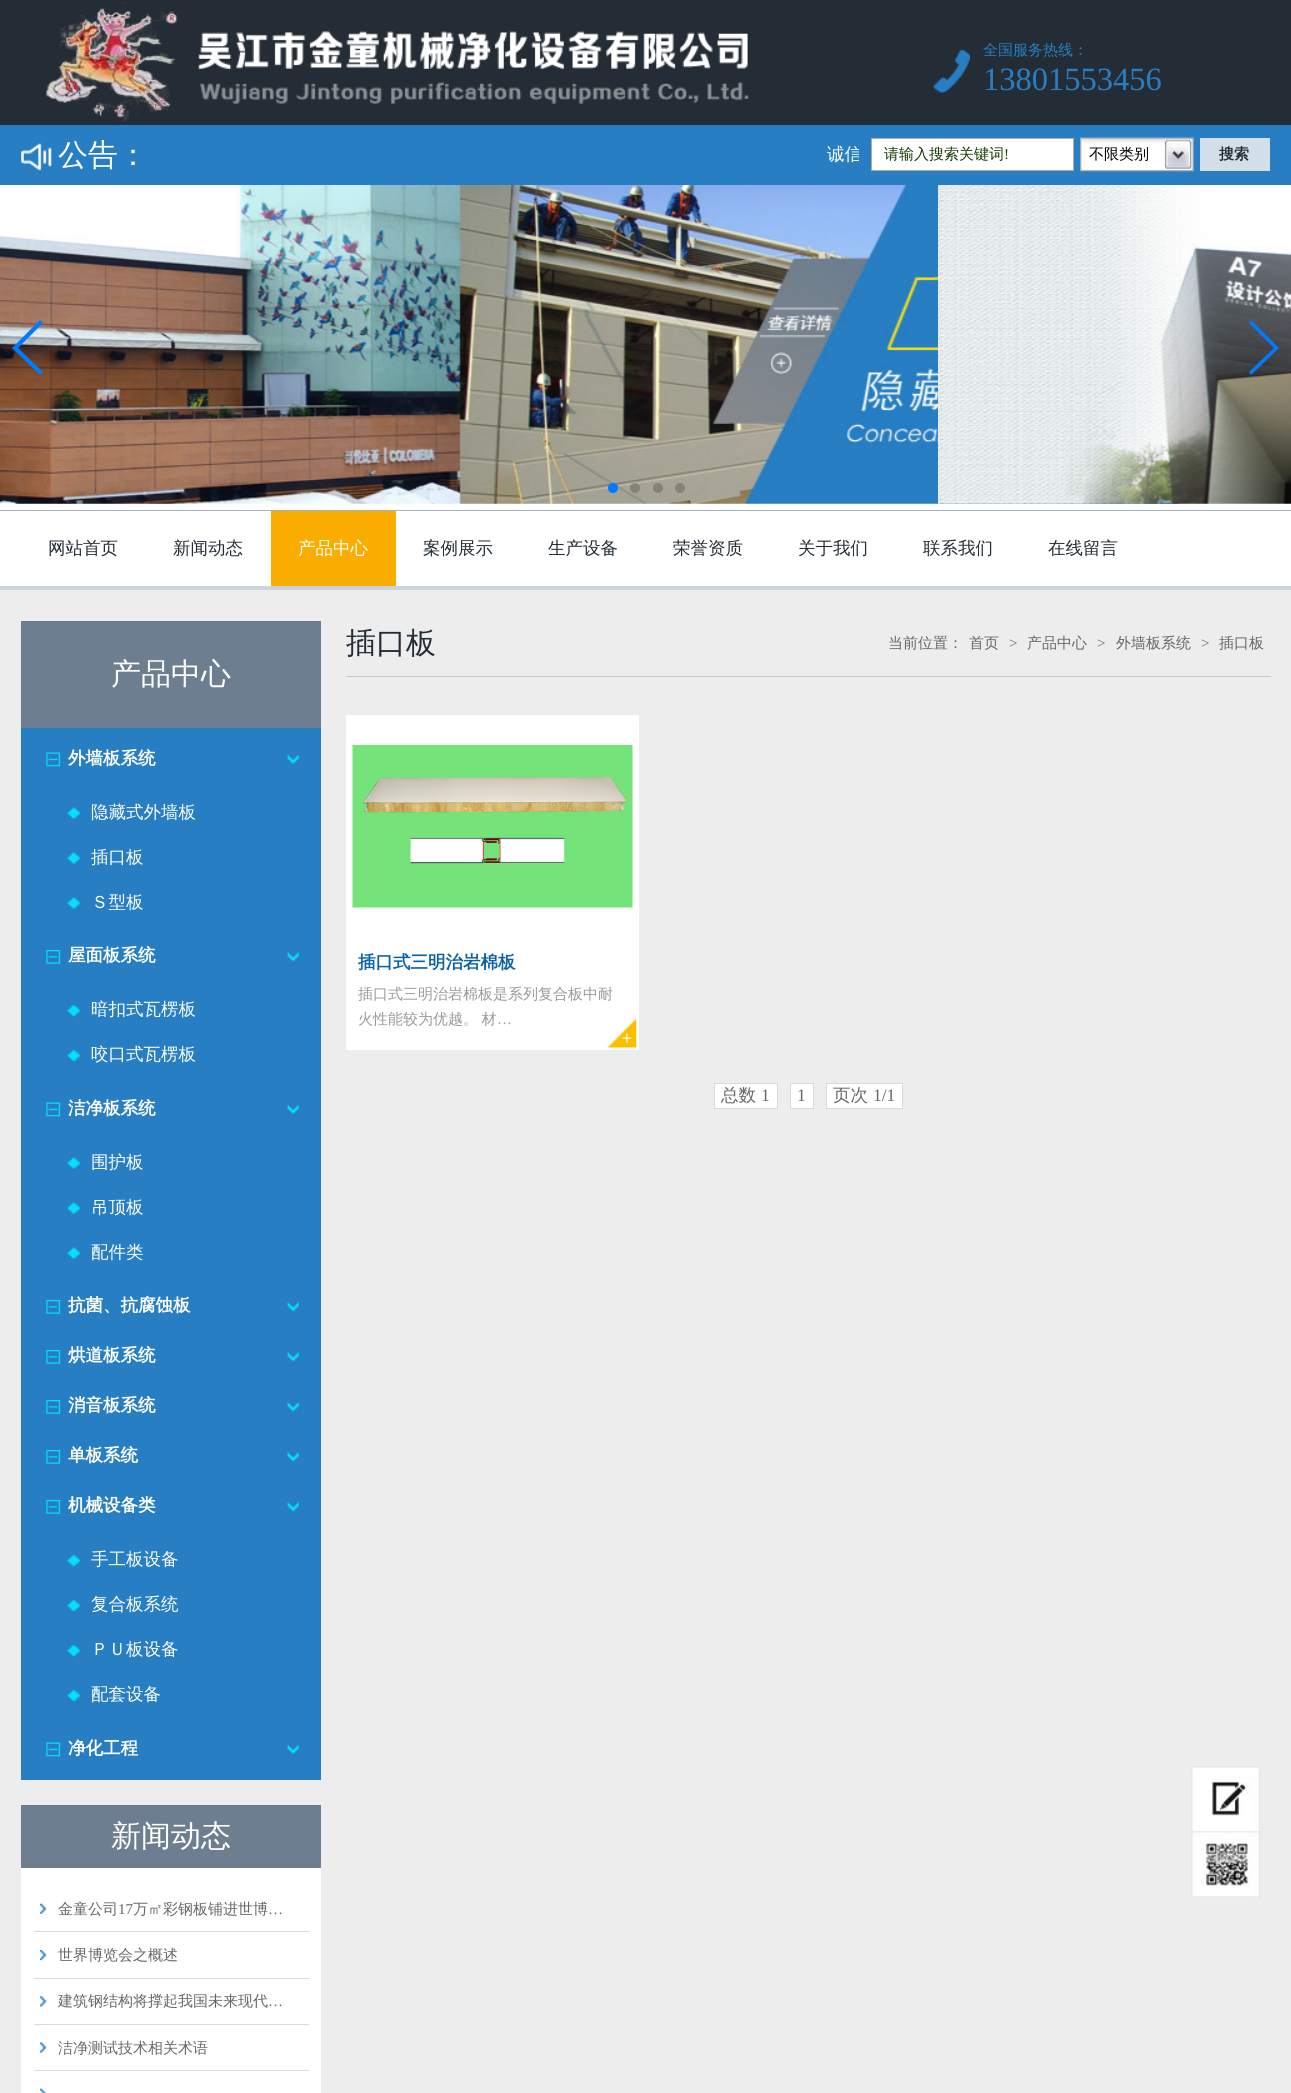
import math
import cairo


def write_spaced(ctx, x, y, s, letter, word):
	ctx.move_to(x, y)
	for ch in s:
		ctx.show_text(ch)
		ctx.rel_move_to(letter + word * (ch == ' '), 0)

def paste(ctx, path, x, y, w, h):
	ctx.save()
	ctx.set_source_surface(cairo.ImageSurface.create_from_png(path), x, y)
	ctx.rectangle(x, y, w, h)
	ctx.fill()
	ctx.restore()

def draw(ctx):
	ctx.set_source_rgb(0.929, 0.929, 0.929)
	ctx.paint()
	ctx.set_source_rgb(0.141, 0.176, 0.212)
	ctx.rectangle(0, 0, 1291, 125)
	ctx.fill()
	paste(ctx, 'media/1.png', 46, 2, 703, 120)
	paste(ctx, 'media/2.png', 933, 50, 37, 43)
	ctx.select_font_face('WenQuanYi Zen Hei Medium')
	ctx.set_font_size(15)
	ctx.set_source_rgb(0.153, 0.494, 0.765)
	ctx.move_to(983, 55)
	ctx.show_text('全国服务热线：')
	ctx.select_font_face('Liberation Serif')
	ctx.set_font_size(32.5)
	ctx.move_to(983, 90)
	ctx.show_text('13801553456')
	ctx.rectangle(0, 125, 1291, 60)
	ctx.fill()
	paste(ctx, 'media/3.png', 21, 143, 31, 28)
	ctx.select_font_face('WenQuanYi Zen Hei Medium')
	ctx.set_font_size(30)
	ctx.set_source_rgb(1, 1, 1)
	ctx.move_to(58, 165)
	ctx.show_text('公告：')
	ctx.save()
	ctx.rectangle(159, 125, 700, 60)
	ctx.clip()
	ctx.set_font_size(17.5)
	ctx.move_to(827, 160)
	ctx.show_text('诚信')
	ctx.restore()
	ctx.rectangle(871.5, 138.5, 202, 32)
	ctx.fill_preserve()
	ctx.set_source_rgb(0.659, 0.675, 0.678)
	ctx.set_line_width(1)
	ctx.stroke()
	ctx.set_font_size(15)
	ctx.set_source_rgb(0.09, 0.231, 0)
	ctx.move_to(884, 159)
	ctx.show_text('请输入搜索关键词')
	ctx.select_font_face('Liberation Serif')
	ctx.move_to(1004, 159)
	ctx.show_text('!')
	paste(ctx, 'media/4.png', 1080, 137, 114, 35)
	ctx.select_font_face('WenQuanYi Zen Hei Medium')
	ctx.set_source_rgb(0, 0, 0)
	ctx.move_to(1089, 159)
	ctx.show_text('不限类别')
	ctx.set_source_rgb(0.824, 0.871, 0.91)
	ctx.rectangle(1200, 138, 70, 33)
	ctx.fill()
	ctx.select_font_face('WenQuanYi Zen Hei', cairo.FONT_SLANT_NORMAL, cairo.FONT_WEIGHT_BOLD)
	ctx.set_source_rgb(0.141, 0.176, 0.212)
	ctx.move_to(1219, 159)
	ctx.show_text('搜索')
	ctx.set_source_rgb(1, 1, 1)
	ctx.rectangle(0, 503, 1291, 7)
	ctx.fill()
	paste(ctx, 'media/5.png', 0, 185, 1291, 319)
	paste(ctx, 'media/6.png', 938, 185, 353, 319)
	ctx.set_source_rgb(0, 0.478, 1)
	ctx.new_path()
	ctx.move_to(12, 348)
	ctx.line_to(40, 320)
	ctx.line_to(43, 323)
	ctx.line_to(18, 348)
	ctx.line_to(43, 372)
	ctx.line_to(40, 375)
	ctx.close_path()
	ctx.fill()
	ctx.new_path()
	ctx.move_to(1279, 348)
	ctx.line_to(1251, 375)
	ctx.line_to(1249, 372)
	ctx.line_to(1274, 348)
	ctx.line_to(1249, 323)
	ctx.line_to(1251, 320)
	ctx.close_path()
	ctx.fill()
	ctx.arc(613, 488, 5, 0, 2 * math.pi)
	ctx.fill()
	ctx.set_source_rgba(0, 0, 0, 0.2)
	ctx.arc(635, 488, 5, 0, 2 * math.pi)
	ctx.fill()
	ctx.arc(658, 488, 5, 0, 2 * math.pi)
	ctx.fill()
	ctx.arc(680, 488, 5, 0, 2 * math.pi)
	ctx.fill()
	ctx.set_source_rgb(1, 1, 1)
	ctx.rectangle(0, 511, 1291, 75)
	ctx.fill()
	ctx.set_source_rgb(0.635, 0.702, 0.765)
	ctx.rectangle(0, 510, 1291, 1)
	ctx.fill()
	ctx.set_source_rgb(0.796, 0.827, 0.859)
	ctx.rectangle(0, 586, 1291, 4)
	ctx.fill()
	ctx.select_font_face('WenQuanYi Zen Hei Medium')
	ctx.set_font_size(17.5)
	ctx.set_source_rgb(0.141, 0.176, 0.212)
	ctx.move_to(48, 554)
	ctx.show_text('网站首页')
	ctx.move_to(173, 554)
	ctx.show_text('新闻动态')
	ctx.set_source_rgb(0.973, 0.678, 0)
	ctx.rectangle(271, 511, 125, 75)
	ctx.fill()
	ctx.set_source_rgb(1, 1, 1)
	ctx.move_to(298, 554)
	ctx.show_text('产品中心')
	ctx.set_source_rgb(0.141, 0.176, 0.212)
	for x, y, s in [
		(423, 554, '案例展示'),
		(548, 554, '生产设备'),
		(673, 554, '荣誉资质'),
		(798, 554, '关于我们'),
		(923, 554, '联系我们'),
		(1048, 554, '在线留言'),
	]:
		ctx.move_to(x, y)
		ctx.show_text(s)
	ctx.set_source_rgb(0.153, 0.494, 0.765)
	ctx.rectangle(21, 728, 300, 1052)
	ctx.fill()
	ctx.set_source_rgb(0.424, 0.494, 0.561)
	ctx.rectangle(21, 621, 300, 107)
	ctx.fill()
	ctx.set_font_size(30)
	ctx.set_source_rgb(1, 1, 1)
	ctx.move_to(111, 684)
	ctx.show_text('产品中心')
	paste(ctx, 'media/7.png', 46, 752, 253, 15)
	ctx.select_font_face('WenQuanYi Zen Hei', cairo.FONT_SLANT_NORMAL, cairo.FONT_WEIGHT_BOLD)
	ctx.set_font_size(17.5)
	ctx.move_to(68, 764)
	ctx.show_text('外墙板系统')
	paste(ctx, 'media/8.png', 67, 807, 13, 12)
	ctx.select_font_face('WenQuanYi Zen Hei Medium')
	ctx.move_to(91, 818)
	ctx.show_text('隐藏式外墙板')
	paste(ctx, 'media/8.png', 67, 852, 13, 12)
	ctx.move_to(91, 863)
	ctx.show_text('插口板')
	paste(ctx, 'media/8.png', 67, 897, 13, 12)
	ctx.move_to(91, 908)
	ctx.show_text('Ｓ型板')
	paste(ctx, 'media/9.png', 46, 950, 253, 14)
	ctx.select_font_face('WenQuanYi Zen Hei', cairo.FONT_SLANT_NORMAL, cairo.FONT_WEIGHT_BOLD)
	ctx.move_to(68, 961)
	ctx.show_text('屋面板系统')
	paste(ctx, 'media/10.png', 67, 1005, 13, 12)
	ctx.select_font_face('WenQuanYi Zen Hei Medium')
	ctx.move_to(91, 1015)
	ctx.show_text('暗扣式瓦楞板')
	paste(ctx, 'media/10.png', 67, 1050, 13, 12)
	ctx.move_to(91, 1060)
	ctx.show_text('咬口式瓦楞板')
	paste(ctx, 'media/7.png', 46, 1102, 253, 15)
	ctx.select_font_face('WenQuanYi Zen Hei', cairo.FONT_SLANT_NORMAL, cairo.FONT_WEIGHT_BOLD)
	ctx.move_to(68, 1114)
	ctx.show_text('洁净板系统')
	paste(ctx, 'media/8.png', 67, 1157, 13, 12)
	ctx.select_font_face('WenQuanYi Zen Hei Medium')
	ctx.move_to(91, 1168)
	ctx.show_text('围护板')
	paste(ctx, 'media/8.png', 67, 1202, 13, 12)
	ctx.move_to(91, 1213)
	ctx.show_text('吊顶板')
	paste(ctx, 'media/8.png', 67, 1247, 13, 12)
	ctx.move_to(91, 1258)
	ctx.show_text('配件类')
	paste(ctx, 'media/9.png', 46, 1300, 253, 14)
	ctx.select_font_face('WenQuanYi Zen Hei', cairo.FONT_SLANT_NORMAL, cairo.FONT_WEIGHT_BOLD)
	ctx.move_to(68, 1311)
	ctx.show_text('抗菌、抗腐蚀板')
	paste(ctx, 'media/9.png', 46, 1350, 253, 14)
	ctx.move_to(68, 1361)
	ctx.show_text('烘道板系统')
	paste(ctx, 'media/9.png', 46, 1400, 253, 14)
	ctx.move_to(68, 1411)
	ctx.show_text('消音板系统')
	paste(ctx, 'media/9.png', 46, 1450, 253, 14)
	ctx.move_to(68, 1461)
	ctx.show_text('单板系统')
	paste(ctx, 'media/9.png', 46, 1500, 253, 14)
	ctx.move_to(68, 1511)
	ctx.show_text('机械设备类')
	paste(ctx, 'media/10.png', 67, 1555, 13, 12)
	ctx.select_font_face('WenQuanYi Zen Hei Medium')
	ctx.move_to(91, 1565)
	ctx.show_text('手工板设备')
	paste(ctx, 'media/10.png', 67, 1600, 13, 12)
	ctx.move_to(91, 1610)
	ctx.show_text('复合板系统')
	paste(ctx, 'media/10.png', 67, 1645, 13, 12)
	ctx.move_to(91, 1655)
	ctx.show_text('ＰＵ板设备')
	paste(ctx, 'media/10.png', 67, 1690, 13, 12)
	ctx.move_to(91, 1700)
	ctx.show_text('配套设备')
	paste(ctx, 'media/7.png', 46, 1742, 253, 15)
	ctx.select_font_face('WenQuanYi Zen Hei', cairo.FONT_SLANT_NORMAL, cairo.FONT_WEIGHT_BOLD)
	ctx.move_to(68, 1754)
	ctx.show_text('净化工程')
	ctx.set_source_rgb(0.424, 0.494, 0.561)
	ctx.rectangle(21, 1805, 300, 63)
	ctx.fill()
	ctx.select_font_face('WenQuanYi Zen Hei Medium')
	ctx.set_font_size(30)
	ctx.set_source_rgb(1, 1, 1)
	ctx.move_to(111, 1846)
	ctx.show_text('新闻动态')
	ctx.rectangle(21, 1868, 300, 225)
	ctx.fill()
	paste(ctx, 'media/11.png', 40, 1903, 7, 11)
	ctx.set_source_rgb(0.831, 0.867, 0.89)
	ctx.rectangle(34, 1931, 275, 1)
	ctx.fill()
	ctx.set_font_size(15)
	ctx.set_source_rgb(0.4, 0.4, 0.4)
	ctx.move_to(58, 1914)
	ctx.show_text('金童公司')
	ctx.select_font_face('Liberation Serif')
	ctx.move_to(118, 1914)
	ctx.show_text('17')
	ctx.select_font_face('WenQuanYi Zen Hei Medium')
	ctx.move_to(133, 1914)
	ctx.show_text('万㎡彩钢板铺进世博')
	ctx.select_font_face('Liberation Serif')
	ctx.move_to(268, 1914)
	ctx.show_text('…')
	paste(ctx, 'media/12.png', 40, 1950, 7, 11)
	ctx.set_source_rgb(0.831, 0.867, 0.89)
	ctx.rectangle(34, 1978, 275, 1)
	ctx.fill()
	ctx.select_font_face('WenQuanYi Zen Hei Medium')
	ctx.set_source_rgb(0.4, 0.4, 0.4)
	ctx.move_to(58, 1960)
	ctx.show_text('世界博览会之概述')
	paste(ctx, 'media/13.png', 40, 1996, 7, 11)
	ctx.set_source_rgb(0.831, 0.867, 0.89)
	ctx.rectangle(34, 2024, 275, 1)
	ctx.fill()
	ctx.set_source_rgb(0.4, 0.4, 0.4)
	ctx.move_to(58, 2006)
	ctx.show_text('建筑钢结构将撑起我国未来现代')
	ctx.select_font_face('Liberation Serif')
	ctx.move_to(268, 2006)
	ctx.show_text('…')
	paste(ctx, 'media/14.png', 40, 2042, 7, 11)
	ctx.set_source_rgb(0.831, 0.867, 0.89)
	ctx.rectangle(34, 2070, 275, 1)
	ctx.fill()
	ctx.select_font_face('WenQuanYi Zen Hei Medium')
	ctx.set_source_rgb(0.4, 0.4, 0.4)
	ctx.move_to(58, 2053)
	ctx.show_text('洁净测试技术相关术语')
	paste(ctx, 'media/15.png', 40, 2088, 7, 5)
	ctx.set_source_rgb(0.784, 0.784, 0.784)
	ctx.rectangle(346, 676, 925, 1)
	ctx.fill()
	ctx.set_font_size(30)
	ctx.set_source_rgb(0.141, 0.176, 0.212)
	ctx.move_to(346, 653)
	ctx.show_text('插口板')
	ctx.set_font_size(15)
	ctx.set_source_rgb(0.4, 0.4, 0.4)
	ctx.move_to(888, 648)
	ctx.show_text('当前位置：')
	ctx.move_to(969, 648)
	ctx.show_text('首页')
	ctx.select_font_face('Liberation Serif')
	ctx.move_to(1009, 648)
	ctx.show_text('>')
	ctx.select_font_face('WenQuanYi Zen Hei Medium')
	ctx.move_to(1027, 648)
	ctx.show_text('产品中心')
	ctx.select_font_face('Liberation Serif')
	ctx.move_to(1097, 648)
	ctx.show_text('>')
	ctx.select_font_face('WenQuanYi Zen Hei Medium')
	ctx.move_to(1116, 648)
	ctx.show_text('外墙板系统')
	ctx.select_font_face('Liberation Serif')
	ctx.move_to(1201, 648)
	ctx.show_text('>')
	ctx.select_font_face('WenQuanYi Zen Hei Medium')
	ctx.move_to(1219, 648)
	ctx.show_text('插口板')
	ctx.set_source_rgb(1, 1, 1)
	ctx.rectangle(346, 715, 293, 335)
	ctx.fill()
	paste(ctx, 'media/16.png', 352, 745, 281, 163)
	ctx.select_font_face('WenQuanYi Zen Hei', cairo.FONT_SLANT_NORMAL, cairo.FONT_WEIGHT_BOLD)
	ctx.set_font_size(17.5)
	ctx.set_source_rgb(0.043, 0.38, 0.647)
	ctx.move_to(358, 968)
	ctx.show_text('插口式三明治岩棉板')
	ctx.select_font_face('WenQuanYi Zen Hei Medium')
	ctx.set_font_size(15)
	ctx.set_source_rgb(0.6, 0.6, 0.6)
	ctx.move_to(358, 999)
	ctx.show_text('插口式三明治岩棉板是系列复合板中耐')
	write_spaced(ctx, 358, 1024, '火性能较为优越。 材', 0, -1)
	ctx.select_font_face('Liberation Serif')
	ctx.move_to(497, 1024)
	ctx.show_text('…')
	paste(ctx, 'media/17.png', 607, 1018, 30, 30)
	ctx.set_source_rgb(1, 1, 1)
	ctx.rectangle(714.5, 1083.5, 63, 25)
	ctx.fill_preserve()
	ctx.set_source_rgb(0.851, 0.851, 0.851)
	ctx.stroke()
	ctx.select_font_face('WenQuanYi Zen Hei Medium')
	ctx.set_font_size(17.5)
	ctx.set_source_rgb(0.4, 0.4, 0.4)
	ctx.move_to(721, 1101)
	ctx.show_text('总数')
	ctx.select_font_face('Liberation Serif')
	ctx.move_to(761, 1101)
	ctx.show_text('1')
	ctx.set_source_rgb(1, 1, 1)
	ctx.rectangle(790.5, 1083.5, 23, 25)
	ctx.fill_preserve()
	ctx.set_source_rgb(0.851, 0.851, 0.851)
	ctx.stroke()
	ctx.set_source_rgb(0.4, 0.4, 0.4)
	ctx.move_to(797, 1101)
	ctx.show_text('1')
	ctx.set_source_rgb(1, 1, 1)
	ctx.rectangle(826.5, 1083.5, 76, 25)
	ctx.fill_preserve()
	ctx.set_source_rgb(0.851, 0.851, 0.851)
	ctx.stroke()
	ctx.select_font_face('WenQuanYi Zen Hei Medium')
	ctx.set_source_rgb(0.4, 0.4, 0.4)
	ctx.move_to(833, 1101)
	ctx.show_text('页次')
	ctx.select_font_face('Liberation Serif')
	ctx.move_to(873, 1101)
	ctx.show_text('1/1')
	paste(ctx, 'media/18.png', 1191, 1766, 69, 67)
	paste(ctx, 'media/19.png', 1191, 1832, 69, 66)


surface = cairo.ImageSurface(cairo.FORMAT_RGB24, 1291, 2093)
ctx = cairo.Context(surface)
options = cairo.FontOptions()
options.set_hint_metrics(cairo.HINT_METRICS_OFF)
options.set_hint_style(cairo.HINT_STYLE_NONE)
ctx.set_font_options(options)
ctx.set_miter_limit(4)
draw(ctx)
surface.write_to_png('image.png')
